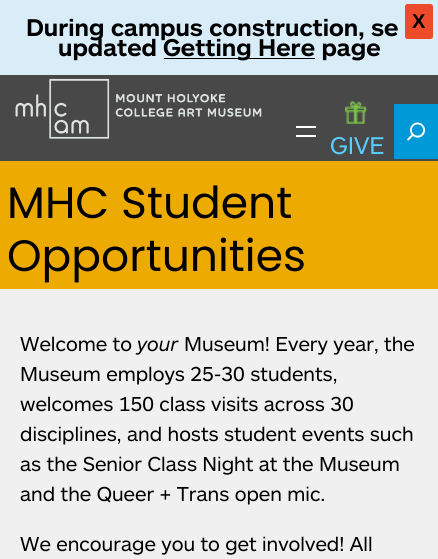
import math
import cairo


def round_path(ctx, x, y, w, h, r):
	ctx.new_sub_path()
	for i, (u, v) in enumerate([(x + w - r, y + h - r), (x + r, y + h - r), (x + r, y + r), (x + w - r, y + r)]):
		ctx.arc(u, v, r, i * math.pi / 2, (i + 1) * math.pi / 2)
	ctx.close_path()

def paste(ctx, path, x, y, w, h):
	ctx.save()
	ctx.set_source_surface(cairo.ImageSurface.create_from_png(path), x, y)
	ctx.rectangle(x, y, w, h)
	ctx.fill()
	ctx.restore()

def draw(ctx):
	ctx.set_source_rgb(0.941, 0.941, 0.941)
	ctx.paint()
	ctx.set_source_rgb(0.851, 0.929, 0.969)
	ctx.rectangle(0, 0, 438, 75)
	ctx.fill()
	ctx.select_font_face('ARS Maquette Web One', cairo.FONT_SLANT_NORMAL, cairo.FONT_WEIGHT_BOLD)
	ctx.set_font_size(24)
	ctx.set_source_rgb(0, 0, 0)
	ctx.move_to(26, 36)
	ctx.show_text('During campus construction, se')
	ctx.move_to(58, 56)
	ctx.show_text('updated')
	ctx.rectangle(164, 58, 151, 1)
	ctx.fill()
	ctx.move_to(163, 56)
	ctx.show_text('Getting Here page')
	ctx.set_source_rgb(0.933, 0.294, 0.169)
	round_path(ctx, 405.5, 4.5, 27, 34, 2)
	ctx.fill_preserve()
	ctx.set_line_width(1)
	ctx.stroke()
	ctx.select_font_face('Liberation Sans', cairo.FONT_SLANT_NORMAL, cairo.FONT_WEIGHT_BOLD)
	ctx.set_font_size(20)
	ctx.set_source_rgb(0, 0, 0)
	ctx.move_to(412, 28)
	ctx.show_text('X')
	ctx.set_source_rgb(0.282, 0.282, 0.282)
	ctx.rectangle(0, 75, 438, 86)
	ctx.fill()
	paste(ctx, 'media/1.png', 15, 78, 247, 61)
	ctx.set_source_rgb(1, 1, 1)
	ctx.rectangle(296, 126, 20, 2)
	ctx.rectangle(296, 135, 20, 2)
	ctx.fill()
	ctx.set_source_rgb(0, 0.6, 0.847)
	ctx.rectangle(394, 104, 44, 55)
	ctx.fill()
	paste(ctx, 'media/2.png', 407, 122, 19, 19)
	paste(ctx, 'media/3.png', 345, 101, 22, 23)
	ctx.select_font_face('ARS Maquette Web One')
	ctx.set_font_size(24)
	ctx.set_source_rgb(0.345, 0.808, 1)
	ctx.move_to(330, 154)
	ctx.show_text('GIVE')
	ctx.set_source_rgb(0.929, 0.667, 0)
	ctx.rectangle(0, 161, 438, 128)
	ctx.fill()
	ctx.select_font_face('Poppins')
	ctx.set_font_size(44)
	ctx.set_source_rgb(0, 0, 0)
	ctx.move_to(7, 218)
	ctx.show_text('MHC Student')
	ctx.move_to(7, 271)
	ctx.show_text('Opportunities')
	ctx.select_font_face('ARS Maquette Web One')
	ctx.set_font_size(20)
	ctx.move_to(20, 351)
	ctx.show_text('Welcome to')
	ctx.select_font_face('ARS Maquette Web One', cairo.FONT_SLANT_ITALIC)
	ctx.move_to(137, 351)
	ctx.show_text('your')
	ctx.select_font_face('ARS Maquette Web One')
	for x, y, s in [
		(184, 351, 'Museum! Every year, the'),
		(20, 381, 'Museum employs 25-30 students,'),
		(20, 411, 'welcomes 150 class visits across 30'),
		(20, 441, 'disciplines, and hosts student events such'),
		(20, 471, 'as the Senior Class Night at the Museum'),
		(20, 501, 'and the Queer + Trans open mic.'),
		(20, 551, 'We encourage you to get involved! All'),
	]:
		ctx.move_to(x, y)
		ctx.show_text(s)


surface = cairo.ImageSurface(cairo.FORMAT_RGB24, 438, 559)
ctx = cairo.Context(surface)
options = cairo.FontOptions()
options.set_hint_metrics(cairo.HINT_METRICS_OFF)
options.set_hint_style(cairo.HINT_STYLE_NONE)
ctx.set_font_options(options)
ctx.set_miter_limit(4)
draw(ctx)
surface.write_to_png('image.png')
